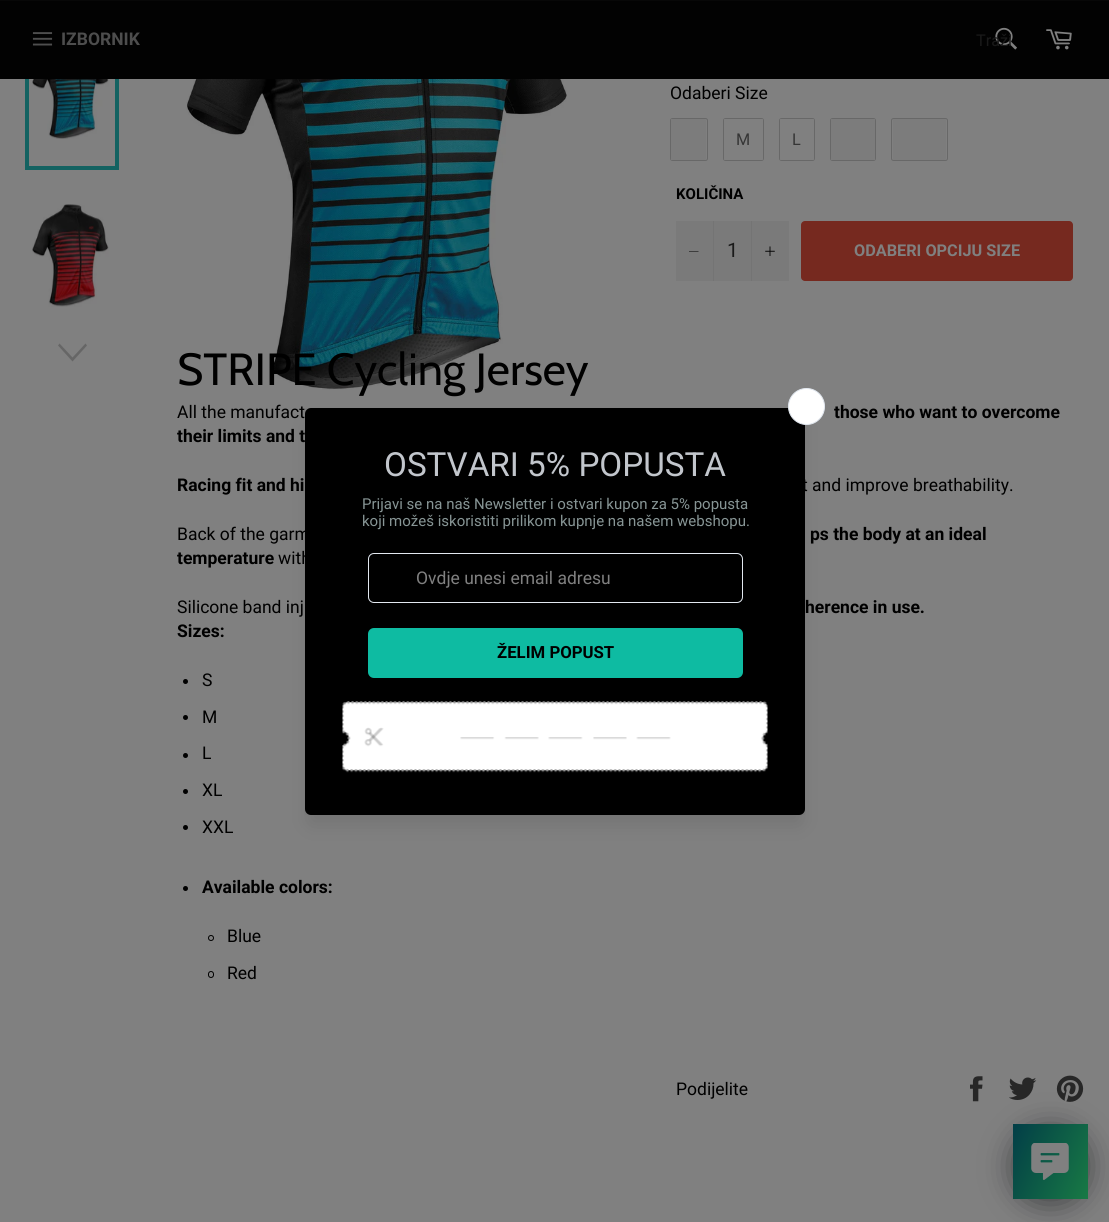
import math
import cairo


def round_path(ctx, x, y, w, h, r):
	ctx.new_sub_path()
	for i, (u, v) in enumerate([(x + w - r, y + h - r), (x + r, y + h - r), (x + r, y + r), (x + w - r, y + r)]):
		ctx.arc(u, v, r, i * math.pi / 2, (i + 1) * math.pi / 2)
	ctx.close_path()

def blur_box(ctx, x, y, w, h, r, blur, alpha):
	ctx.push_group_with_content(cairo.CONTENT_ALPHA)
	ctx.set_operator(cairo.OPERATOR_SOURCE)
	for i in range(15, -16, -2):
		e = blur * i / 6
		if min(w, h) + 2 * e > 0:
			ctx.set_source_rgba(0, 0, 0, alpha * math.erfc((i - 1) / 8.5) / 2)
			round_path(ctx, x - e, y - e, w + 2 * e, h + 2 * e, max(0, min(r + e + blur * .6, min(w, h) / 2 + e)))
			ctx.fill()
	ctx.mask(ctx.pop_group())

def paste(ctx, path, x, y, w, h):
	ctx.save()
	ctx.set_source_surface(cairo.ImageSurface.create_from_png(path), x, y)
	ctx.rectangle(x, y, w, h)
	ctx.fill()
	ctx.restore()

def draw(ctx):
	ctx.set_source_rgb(0.502, 0.502, 0.502)
	ctx.paint()
	paste(ctx, 'media/4.png', 32, 79, 77, 60)
	ctx.rectangle(27, 10, 90, 158)
	ctx.set_source_rgb(0.075, 0.384, 0.38)
	ctx.set_line_width(4)
	ctx.stroke()
	ctx.set_source_rgb(0.008, 0.008, 0.008)
	ctx.rectangle(0, 1, 1109, 78)
	ctx.fill()
	ctx.set_source_rgb(0.031, 0.031, 0.031)
	ctx.rectangle(0, 0, 1109, 1)
	ctx.fill()
	paste(ctx, 'media/1.png', 32, 32, 21, 14)
	ctx.select_font_face('Roboto', cairo.FONT_SLANT_NORMAL, cairo.FONT_WEIGHT_BOLD)
	ctx.set_font_size(17.5)
	ctx.set_source_rgb(0.302, 0.302, 0.302)
	ctx.move_to(61, 45)
	ctx.show_text('IZBORNIK')
	paste(ctx, 'media/2.png', 995, 27, 22, 23)
	ctx.select_font_face('Roboto')
	ctx.set_font_size(16.25)
	ctx.set_source_rgb(0.102, 0.102, 0.102)
	ctx.move_to(976, 46)
	ctx.show_text('Traži')
	paste(ctx, 'media/3.png', 1046, 29, 26, 21)
	paste(ctx, 'media/5.png', 32, 204, 77, 103)
	ctx.set_source_rgb(0.4, 0.4, 0.4)
	ctx.new_path()
	ctx.move_to(85.5, 343.5)
	ctx.line_to(87, 345.5)
	ctx.line_to(72.5, 361.5)
	ctx.line_to(58, 345.5)
	ctx.line_to(59.5, 343.5)
	ctx.line_to(72.5, 357.5)
	ctx.close_path()
	ctx.fill()
	paste(ctx, 'media/6.png', 186, 79, 381, 311)
	ctx.set_font_size(17.5)
	ctx.set_source_rgb(0, 0, 0)
	ctx.move_to(670, 99)
	ctx.show_text('Odaberi Size')
	round_path(ctx, 670.5, 118.5, 37, 42, 2)
	ctx.set_source_rgb(0.408, 0.408, 0.408)
	ctx.set_line_width(1)
	ctx.stroke()
	ctx.set_source_rgb(0.502, 0.502, 0.502)
	round_path(ctx, 671, 119, 35, 41, 1)
	ctx.fill()
	ctx.save()
	round_path(ctx, 671, 119, 35, 41, 1)
	ctx.clip()
	ctx.set_source_rgba(0.482, 0.482, 0.482, 0.75)
	round_path(ctx, 670, 118, 38, 43, 2.5)
	ctx.fill()
	ctx.restore()
	round_path(ctx, 723.5, 118.5, 40, 42, 2)
	ctx.set_source_rgb(0.408, 0.408, 0.408)
	ctx.stroke()
	ctx.set_source_rgb(0.502, 0.502, 0.502)
	round_path(ctx, 724, 119, 39, 41, 1)
	ctx.fill()
	ctx.set_font_size(16.25)
	ctx.set_source_rgb(0.208, 0.208, 0.208)
	ctx.move_to(736, 145)
	ctx.show_text('M')
	round_path(ctx, 779.5, 118.5, 35, 42, 2)
	ctx.set_source_rgb(0.408, 0.408, 0.408)
	ctx.stroke()
	ctx.set_source_rgb(0.502, 0.502, 0.502)
	round_path(ctx, 780, 119, 34, 41, 1)
	ctx.fill()
	ctx.set_source_rgb(0.208, 0.208, 0.208)
	ctx.move_to(792, 145)
	ctx.show_text('L')
	round_path(ctx, 830.5, 118.5, 45, 42, 2)
	ctx.set_source_rgb(0.408, 0.408, 0.408)
	ctx.stroke()
	ctx.set_source_rgb(0.502, 0.502, 0.502)
	round_path(ctx, 831, 119, 44, 41, 1)
	ctx.fill()
	ctx.save()
	round_path(ctx, 831, 119, 44, 41, 1)
	ctx.clip()
	ctx.set_source_rgba(0.482, 0.482, 0.482, 0.75)
	round_path(ctx, 830, 118, 46, 43, 2.5)
	ctx.fill()
	ctx.restore()
	round_path(ctx, 891.5, 118.5, 56, 42, 2)
	ctx.set_source_rgb(0.408, 0.408, 0.408)
	ctx.stroke()
	ctx.save()
	round_path(ctx, 893, 119, 53, 41, 1)
	ctx.clip()
	ctx.set_source_rgba(0.482, 0.482, 0.482, 0.75)
	round_path(ctx, 891, 118, 57, 43, 2.5)
	ctx.fill()
	ctx.restore()
	ctx.select_font_face('Roboto', cairo.FONT_SLANT_NORMAL, cairo.FONT_WEIGHT_BOLD)
	ctx.set_font_size(15)
	ctx.set_source_rgb(0, 0, 0)
	ctx.move_to(676, 199)
	ctx.show_text('KOLIČINA')
	ctx.set_source_rgb(0.478, 0.478, 0.478)
	ctx.rectangle(676, 221, 113, 60)
	ctx.fill()
	ctx.set_source_rgb(0.455, 0.455, 0.455)
	ctx.rectangle(713, 221, 1, 60)
	ctx.fill()
	ctx.set_source_rgb(0, 0, 0)
	ctx.set_fill_rule(cairo.FILL_RULE_EVEN_ODD)
	ctx.new_path()
	ctx.move_to(698.5, 251)
	ctx.line_to(698.5, 251.5)
	ctx.line_to(689, 251.5)
	ctx.line_to(689, 251)
	ctx.close_path()
	ctx.fill()
	ctx.select_font_face('Roboto')
	ctx.set_font_size(20)
	ctx.set_source_rgb(0.102, 0.102, 0.102)
	ctx.move_to(727, 257)
	ctx.show_text('1')
	ctx.set_source_rgb(0.455, 0.455, 0.455)
	ctx.rectangle(751, 221, 1, 60)
	ctx.fill()
	paste(ctx, 'media/7.png', 765, 246, 10, 10)
	ctx.set_source_rgb(0.463, 0.161, 0.122)
	round_path(ctx, 801, 221, 272, 60, 4)
	ctx.fill()
	ctx.select_font_face('Roboto', cairo.FONT_SLANT_NORMAL, cairo.FONT_WEIGHT_BOLD)
	ctx.set_font_size(16.25)
	ctx.set_source_rgb(0.502, 0.502, 0.502)
	ctx.move_to(854, 256)
	ctx.show_text('ODABERI OPCIJU SIZE')
	ctx.select_font_face('Cabin')
	ctx.set_font_size(45)
	ctx.set_source_rgb(0, 0, 0)
	ctx.move_to(177, 385)
	ctx.show_text('STRIPE Cycling Jersey')
	ctx.select_font_face('Roboto')
	ctx.set_font_size(17.5)
	ctx.move_to(177, 418)
	ctx.show_text('All the manufact')
	ctx.select_font_face('Roboto', cairo.FONT_SLANT_NORMAL, cairo.FONT_WEIGHT_BOLD)
	for x, y, s in [
		(834, 418, 'those who want to overcome'),
		(177, 442, 'their limits and t'),
		(177, 491, 'Racing fit and hi'),
	]:
		ctx.move_to(x, y)
		ctx.show_text(s)
	ctx.select_font_face('Roboto')
	ctx.move_to(802, 491)
	ctx.show_text('t and improve breathability.')
	ctx.move_to(177, 540)
	ctx.show_text('Back of the garm')
	ctx.select_font_face('Roboto', cairo.FONT_SLANT_NORMAL, cairo.FONT_WEIGHT_BOLD)
	ctx.move_to(810, 540)
	ctx.show_text('ps the body at an ideal')
	ctx.move_to(177, 564)
	ctx.show_text('temperature')
	ctx.select_font_face('Roboto')
	ctx.move_to(278, 564)
	ctx.show_text('with')
	ctx.move_to(177, 613)
	ctx.show_text('Silicone band inj')
	ctx.select_font_face('Roboto', cairo.FONT_SLANT_NORMAL, cairo.FONT_WEIGHT_BOLD)
	ctx.move_to(805, 613)
	ctx.show_text('herence in use.')
	ctx.move_to(177, 637)
	ctx.show_text('Sizes:')
	ctx.new_path()
	ctx.arc(185.5, 681.5, 2.5, 0, 2 * math.pi)
	ctx.fill()
	ctx.select_font_face('Roboto')
	ctx.move_to(202, 686)
	ctx.show_text('S')
	ctx.new_path()
	ctx.arc(185.5, 717.5, 2.5, 0, 2 * math.pi)
	ctx.fill()
	ctx.move_to(202, 723)
	ctx.show_text('M')
	ctx.new_path()
	ctx.arc(185.5, 755.5, 2.5, 0, 2 * math.pi)
	ctx.fill()
	ctx.move_to(202, 759)
	ctx.show_text('L')
	ctx.new_path()
	ctx.arc(185.5, 791.5, 2.5, 0, 2 * math.pi)
	ctx.fill()
	ctx.move_to(202, 796)
	ctx.show_text('XL')
	ctx.new_path()
	ctx.arc(185.5, 827.5, 2.5, 0, 2 * math.pi)
	ctx.fill()
	ctx.move_to(202, 833)
	ctx.show_text('XXL')
	ctx.new_path()
	ctx.arc(185.5, 888.5, 2.5, 0, 2 * math.pi)
	ctx.fill()
	ctx.select_font_face('Roboto', cairo.FONT_SLANT_NORMAL, cairo.FONT_WEIGHT_BOLD)
	ctx.move_to(202, 893)
	ctx.show_text('Available colors:')
	ctx.new_path()
	ctx.arc(211, 938, 2.5, 0, 2 * math.pi)
	ctx.stroke()
	ctx.select_font_face('Roboto')
	ctx.move_to(227, 942)
	ctx.show_text('Blue')
	round_path(ctx, 208.5, 971.5, 5, 6, 2.5)
	ctx.stroke()
	ctx.move_to(227, 979)
	ctx.show_text('Red')
	ctx.move_to(676, 1095)
	ctx.show_text('Podijelite')
	paste(ctx, 'media/8.png', 970, 1076, 13, 26)
	paste(ctx, 'media/9.png', 1009, 1077, 28, 23)
	paste(ctx, 'media/10.png', 1056, 1075, 28, 27)
	ctx.set_source_rgb(0, 0, 0)
	blur_box(ctx, 309, 424, 492, 400, 2.5, 9.5, 0.1)
	ctx.save()
	ctx.set_fill_rule(cairo.FILL_RULE_WINDING)
	ctx.rectangle(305, 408, 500, 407)
	ctx.clip()
	blur_box(ctx, 309, 411, 492, 400, 2.5, 12.5, 0.12)
	ctx.restore()
	ctx.set_source_rgb(0, 0, 0)
	round_path(ctx, 305, 408, 500, 407, 6)
	ctx.fill()
	ctx.set_source_rgb(1, 1, 1)
	ctx.arc(806.5, 406.5, 18, 0, 2 * math.pi)
	ctx.fill_preserve()
	ctx.set_source_rgb(0.886, 0.91, 0.941)
	ctx.stroke()
	ctx.set_font_size(33.25)
	ctx.set_source_rgb(0.761, 0.776, 0.8)
	ctx.move_to(384, 476)
	ctx.show_text('OSTVARI 5% POPUSTA')
	ctx.set_font_size(15)
	ctx.set_source_rgb(0.529, 0.584, 0.584)
	ctx.move_to(362, 509)
	ctx.show_text('Prijavi se na naš Newsletter i ostvari kupon za 5% popusta')
	ctx.move_to(362, 526)
	ctx.show_text('koji možeš iskoristiti prilikom kupnje na našem webshopu.')
	round_path(ctx, 368.5, 553.5, 374, 49, 5.5)
	ctx.set_source_rgb(0.886, 0.91, 0.941)
	ctx.stroke()
	ctx.set_font_size(17.5)
	ctx.set_source_rgb(0.502, 0.502, 0.502)
	ctx.move_to(416, 584)
	ctx.show_text('Ovdje unesi email adresu')
	ctx.set_source_rgb(0.055, 0.733, 0.635)
	round_path(ctx, 368, 628, 375, 50, 6)
	ctx.fill()
	ctx.select_font_face('Roboto', cairo.FONT_SLANT_NORMAL, cairo.FONT_WEIGHT_BOLD)
	ctx.set_font_size(16.75)
	ctx.set_source_rgb(0, 0, 0)
	ctx.move_to(497, 658)
	ctx.show_text('ŽELIM POPUST')
	paste(ctx, 'media/11.png', 342, 701, 426, 72)
	ctx.set_source_rgb(0.004, 0.012, 0.031)
	blur_box(ctx, 1013, 1129, 75, 75, 37.5, 15, 0.5)
	gradient = cairo.LinearGradient(1005, 1140, 1095, 1182)
	gradient.add_color_stop_rgba(0, 0.008, 0.243, 0.278, 1)
	gradient.add_color_stop_rgba(1, 0.094, 0.475, 0.271, 1)
	ctx.set_source(gradient)
	ctx.rectangle(1013, 1124, 75, 75)
	ctx.fill()
	paste(ctx, 'media/12.png', 1031, 1143, 38, 37)


surface = cairo.ImageSurface(cairo.FORMAT_RGB24, 1109, 1222)
ctx = cairo.Context(surface)
options = cairo.FontOptions()
options.set_hint_metrics(cairo.HINT_METRICS_OFF)
options.set_hint_style(cairo.HINT_STYLE_NONE)
ctx.set_font_options(options)
ctx.set_miter_limit(4)
draw(ctx)
surface.write_to_png('image.png')
